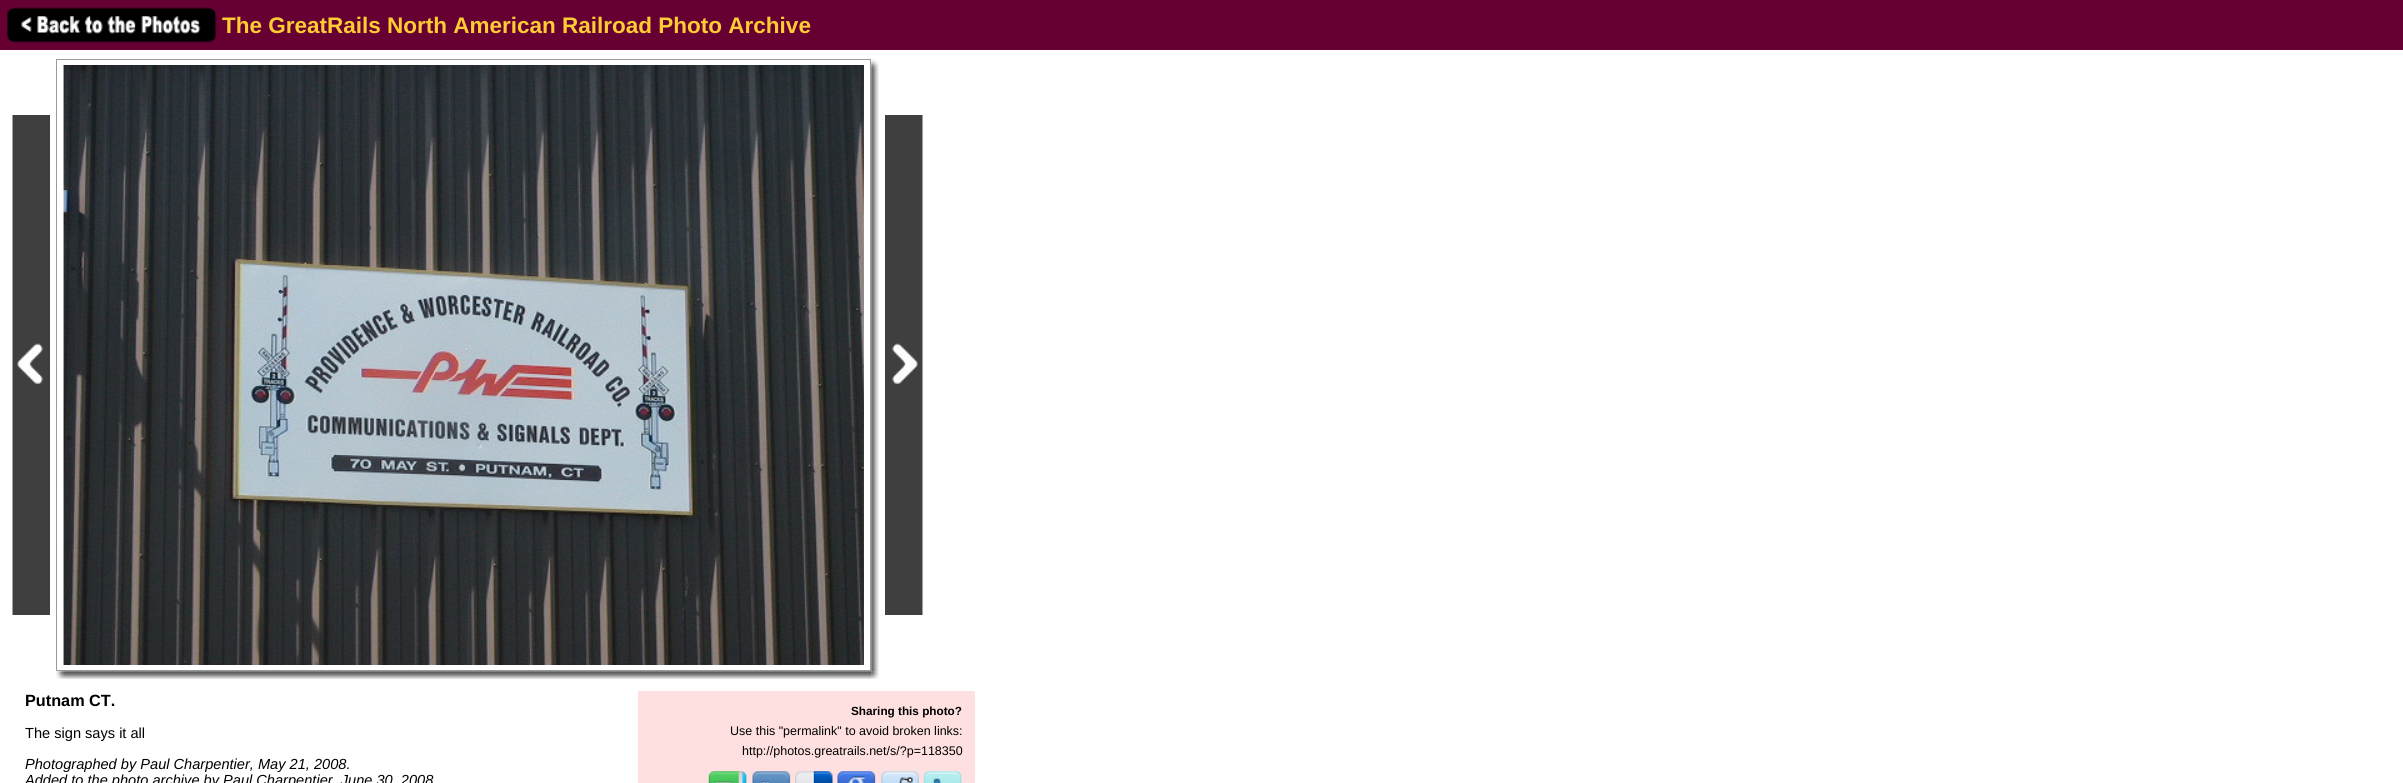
import math
import cairo


def paste(ctx, path, x, y, w, h):
	ctx.save()
	ctx.set_source_surface(cairo.ImageSurface.create_from_png(path), x, y)
	ctx.rectangle(x, y, w, h)
	ctx.fill()
	ctx.restore()

def draw(ctx):
	ctx.set_source_rgb(1, 1, 1)
	ctx.paint()
	ctx.set_source_rgb(0.4, 0, 0.2)
	ctx.rectangle(0, 0, 2403, 50)
	ctx.fill()
	paste(ctx, 'media/1.png', 7, 7, 210, 36)
	ctx.select_font_face('Liberation Sans', cairo.FONT_SLANT_NORMAL, cairo.FONT_WEIGHT_BOLD)
	ctx.set_font_size(22.5)
	ctx.set_source_rgb(1, 0.8, 0.2)
	ctx.move_to(222, 33)
	ctx.show_text('The GreatRails North American Railroad Photo Archive')
	paste(ctx, 'media/2.png', 12, 115, 38, 500)
	ctx.rectangle(56.5, 59.5, 814, 611)
	ctx.set_source_rgb(0.604, 0.604, 0.604)
	ctx.set_line_width(1)
	ctx.stroke()
	paste(ctx, 'media/3.png', 63, 65, 801, 600)
	paste(ctx, 'media/4.png', 63, 65, 801, 600)
	paste(ctx, 'media/5.png', 871, 59, 8, 613)
	paste(ctx, 'media/6.png', 885, 115, 38, 500)
	paste(ctx, 'media/7.png', 56, 671, 816, 8)
	paste(ctx, 'media/8.png', 871, 671, 8, 8)
	ctx.set_font_size(16.25)
	ctx.set_source_rgb(0, 0, 0)
	ctx.move_to(25, 706)
	ctx.show_text('Putnam CT.')
	ctx.select_font_face('Liberation Sans')
	ctx.set_font_size(14.6)
	ctx.move_to(25, 738)
	ctx.show_text('The sign says it all')
	ctx.select_font_face('Liberation Sans', cairo.FONT_SLANT_ITALIC)
	ctx.move_to(25, 769)
	ctx.show_text('Photographed by Paul Charpentier, May 21, 2008.')
	ctx.move_to(25, 785)
	ctx.show_text('Added to the photo archive by Paul Charpentier, June 30, 2008')
	ctx.set_source_rgb(1, 0.878, 0.878)
	ctx.rectangle(638, 691, 337, 92)
	ctx.fill()
	ctx.select_font_face('Liberation Sans', cairo.FONT_SLANT_NORMAL, cairo.FONT_WEIGHT_BOLD)
	ctx.set_font_size(11.75)
	ctx.set_source_rgb(0, 0, 0)
	ctx.move_to(851, 715)
	ctx.show_text('Sharing this photo?')
	ctx.select_font_face('Liberation Sans')
	ctx.set_font_size(12.5)
	ctx.move_to(730, 735)
	ctx.show_text('Use this "permalink" to avoid broken links:')
	ctx.move_to(742, 755)
	ctx.show_text('http://photos.greatrails.net/s/?p=118350')
	paste(ctx, 'media/9.png', 708, 771, 39, 12)
	paste(ctx, 'media/10.png', 752, 771, 39, 12)
	paste(ctx, 'media/11.png', 795, 771, 38, 12)
	paste(ctx, 'media/12.png', 837, 771, 39, 12)
	paste(ctx, 'media/13.png', 881, 771, 38, 12)
	paste(ctx, 'media/14.png', 923, 771, 39, 12)


surface = cairo.ImageSurface(cairo.FORMAT_RGB24, 2403, 783)
ctx = cairo.Context(surface)
options = cairo.FontOptions()
options.set_hint_metrics(cairo.HINT_METRICS_OFF)
options.set_hint_style(cairo.HINT_STYLE_NONE)
ctx.set_font_options(options)
ctx.set_miter_limit(4)
draw(ctx)
surface.write_to_png('image.png')
